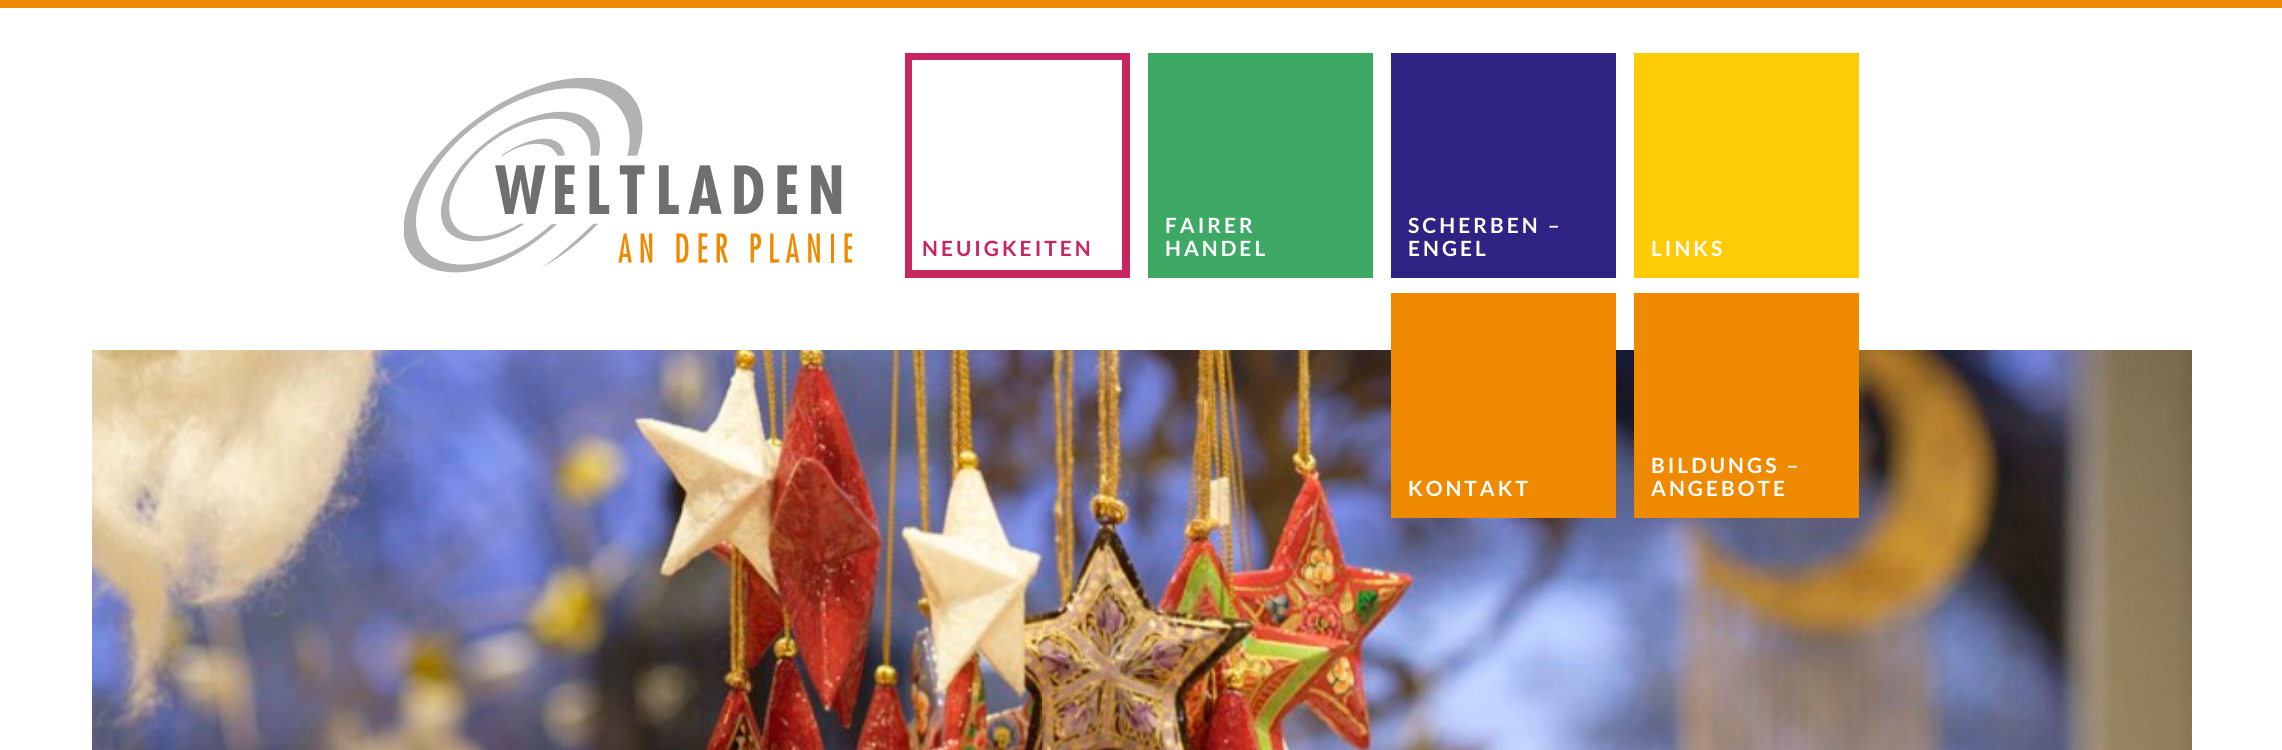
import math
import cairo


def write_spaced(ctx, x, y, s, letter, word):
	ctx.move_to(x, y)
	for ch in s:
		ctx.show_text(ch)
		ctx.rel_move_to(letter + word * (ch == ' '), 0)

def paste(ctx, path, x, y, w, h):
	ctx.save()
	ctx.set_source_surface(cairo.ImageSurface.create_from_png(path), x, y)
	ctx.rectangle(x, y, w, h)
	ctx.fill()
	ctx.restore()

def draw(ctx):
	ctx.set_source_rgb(1, 1, 1)
	ctx.paint()
	ctx.set_source_rgb(0.937, 0.537, 0)
	ctx.rectangle(0, 0, 2282, 8)
	ctx.fill()
	paste(ctx, 'media/1.png', 404, 77, 448, 196)
	ctx.rectangle(909, 57, 217, 217)
	ctx.set_source_rgb(0.78, 0.153, 0.369)
	ctx.set_line_width(8)
	ctx.stroke()
	ctx.set_source_rgb(1, 1, 1)
	ctx.rectangle(912, 60, 210, 210)
	ctx.fill()
	ctx.select_font_face('Lato', cairo.FONT_SLANT_NORMAL, cairo.FONT_WEIGHT_BOLD)
	ctx.set_font_size(21)
	ctx.set_source_rgb(0.78, 0.153, 0.369)
	write_spaced(ctx, 922, 256, 'NEUIGKEITEN', 3, 0)
	ctx.rectangle(1152, 57, 217, 217)
	ctx.set_source_rgb(0.243, 0.659, 0.396)
	ctx.stroke()
	ctx.rectangle(1156, 61, 209, 209)
	ctx.fill()
	ctx.set_source_rgb(1, 1, 1)
	write_spaced(ctx, 1165, 233, 'FAIRER', 3, 0)
	write_spaced(ctx, 1165, 256, 'HANDEL', 3, 0)
	ctx.rectangle(1395, 57, 217, 217)
	ctx.set_source_rgb(0.18, 0.137, 0.51)
	ctx.stroke()
	ctx.rectangle(1399, 61, 209, 209)
	ctx.fill()
	ctx.set_source_rgb(1, 1, 1)
	write_spaced(ctx, 1408, 233, 'SCHERBEN –', 3, 0)
	write_spaced(ctx, 1408, 256, 'ENGEL', 3, 0)
	ctx.rectangle(1638, 57, 217, 217)
	ctx.set_source_rgb(0.996, 0.796, 0.031)
	ctx.stroke()
	ctx.rectangle(1642, 61, 209, 209)
	ctx.fill()
	ctx.set_source_rgb(1, 1, 1)
	write_spaced(ctx, 1651, 256, 'LINKS', 3, 0)
	paste(ctx, 'media/2.png', 92, 350, 2100, 400)
	ctx.rectangle(1395, 297, 217, 217)
	ctx.set_source_rgb(0.937, 0.537, 0)
	ctx.stroke()
	ctx.rectangle(1399, 301, 209, 209)
	ctx.fill()
	ctx.set_source_rgb(1, 1, 1)
	write_spaced(ctx, 1408, 496, 'KONTAKT', 3, 0)
	ctx.rectangle(1638, 297, 217, 217)
	ctx.set_source_rgb(0.937, 0.537, 0)
	ctx.stroke()
	ctx.rectangle(1642, 301, 209, 209)
	ctx.fill()
	ctx.set_source_rgb(1, 1, 1)
	write_spaced(ctx, 1651, 473, 'BILDUNGS –', 3, 0)
	write_spaced(ctx, 1651, 496, 'ANGEBOTE', 3, 0)


surface = cairo.ImageSurface(cairo.FORMAT_RGB24, 2282, 750)
ctx = cairo.Context(surface)
options = cairo.FontOptions()
options.set_hint_metrics(cairo.HINT_METRICS_OFF)
options.set_hint_style(cairo.HINT_STYLE_NONE)
ctx.set_font_options(options)
ctx.set_miter_limit(4)
draw(ctx)
surface.write_to_png('image.png')
